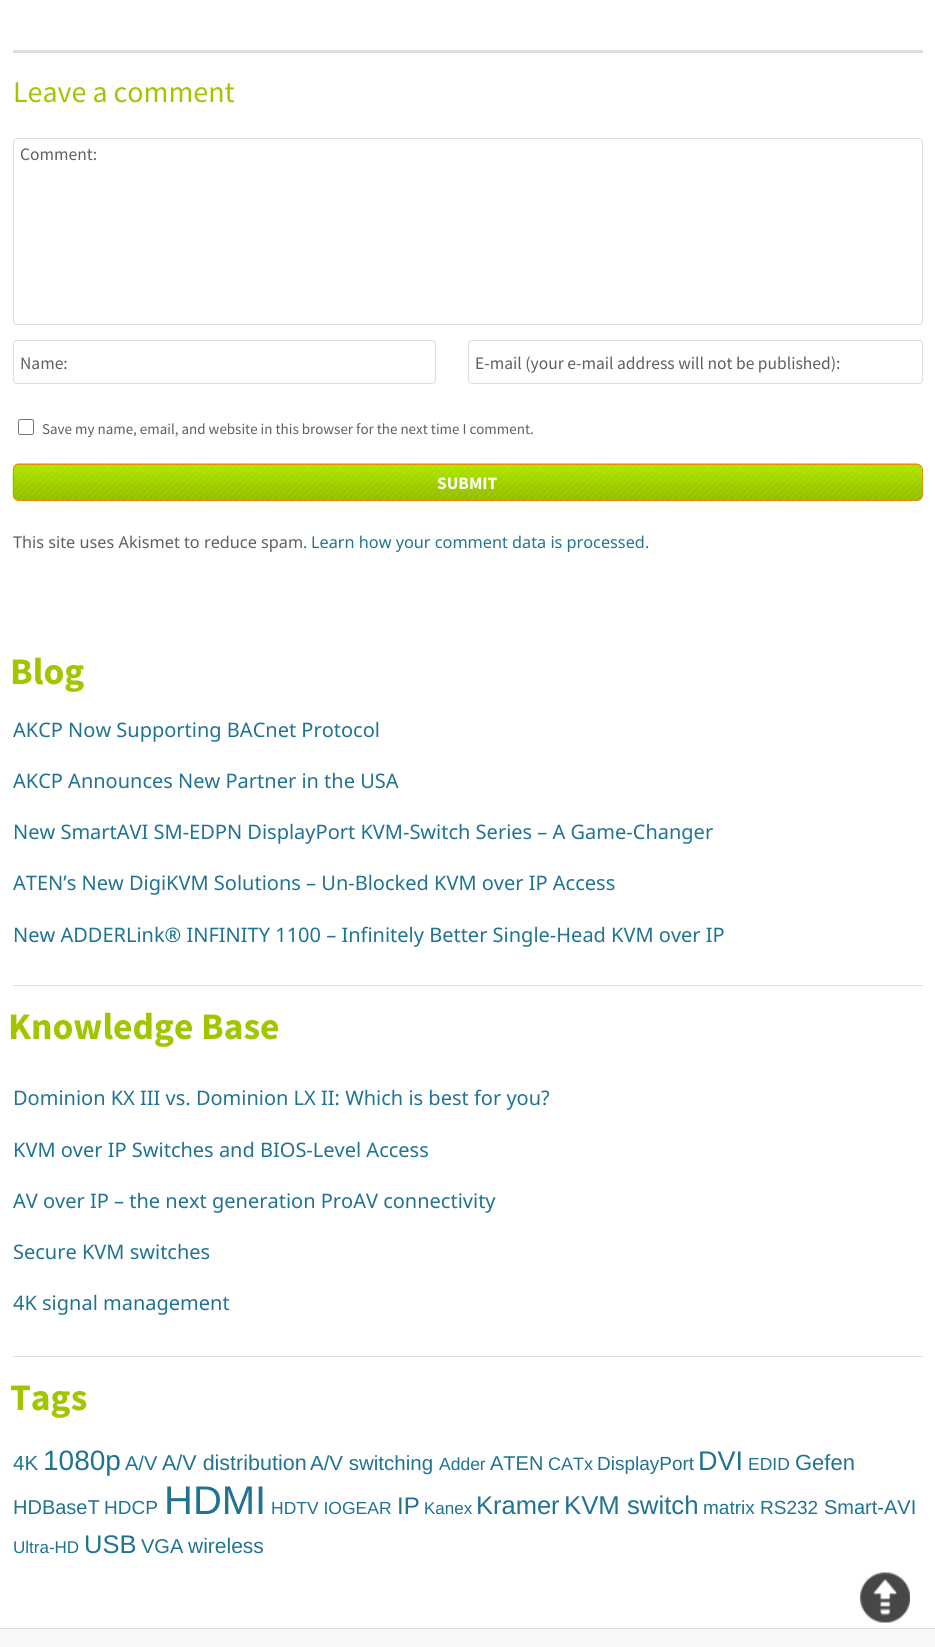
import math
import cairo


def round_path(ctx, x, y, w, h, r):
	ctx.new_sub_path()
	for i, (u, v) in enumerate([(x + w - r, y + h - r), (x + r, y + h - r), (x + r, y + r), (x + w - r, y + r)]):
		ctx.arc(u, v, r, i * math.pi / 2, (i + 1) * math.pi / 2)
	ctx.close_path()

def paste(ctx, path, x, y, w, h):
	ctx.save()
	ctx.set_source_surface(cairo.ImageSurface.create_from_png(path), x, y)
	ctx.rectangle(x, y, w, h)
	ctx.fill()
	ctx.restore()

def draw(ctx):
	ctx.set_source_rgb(1, 1, 1)
	ctx.paint()
	ctx.set_source_rgb(0.871, 0.871, 0.871)
	ctx.rectangle(13, 50, 910, 3)
	ctx.fill()
	ctx.select_font_face('Source Sans Pro')
	ctx.set_font_size(30)
	ctx.set_source_rgb(0.631, 0.776, 0)
	ctx.move_to(13, 102)
	ctx.show_text('Leave a comment')
	round_path(ctx, 13.5, 138.5, 909, 186, 3.5)
	ctx.set_source_rgb(0.871, 0.871, 0.871)
	ctx.set_line_width(1)
	ctx.stroke()
	ctx.set_font_size(17.5)
	ctx.set_source_rgb(0.376, 0.373, 0.373)
	ctx.move_to(20, 160)
	ctx.show_text('Comment:')
	round_path(ctx, 13.5, 340.5, 422, 43, 3.5)
	ctx.set_source_rgb(0.871, 0.871, 0.871)
	ctx.stroke()
	ctx.set_source_rgb(0.376, 0.373, 0.373)
	ctx.move_to(20, 369)
	ctx.show_text('Name:')
	round_path(ctx, 468.5, 340.5, 454, 43, 3.5)
	ctx.set_source_rgb(0.871, 0.871, 0.871)
	ctx.stroke()
	ctx.set_source_rgb(0.376, 0.373, 0.373)
	ctx.move_to(475, 369)
	ctx.show_text('E-mail (your e-mail address will not be published):')
	round_path(ctx, 18.5, 419.5, 15, 15, 2)
	ctx.set_source_rgb(0.463, 0.463, 0.463)
	ctx.stroke()
	ctx.set_font_size(15)
	ctx.set_source_rgb(0.376, 0.373, 0.373)
	ctx.move_to(42, 434)
	ctx.show_text('Save my name, email, and website in this browser for the next time I comment.')
	paste(ctx, 'media/1.png', 12, 463, 911, 38)
	round_path(ctx, 13.5, 464.5, 909, 36, 5.5)
	ctx.set_source_rgb(0.894, 0.557, 0.012)
	ctx.stroke()
	ctx.select_font_face('Source Sans Pro', cairo.FONT_SLANT_NORMAL, cairo.FONT_WEIGHT_BOLD)
	ctx.set_font_size(17.5)
	ctx.set_source_rgb(1, 1, 1)
	ctx.move_to(437, 489)
	ctx.show_text('SUBMIT')
	ctx.select_font_face('Noto Sans')
	ctx.set_font_size(16.25)
	ctx.set_source_rgb(0.376, 0.373, 0.373)
	ctx.move_to(13, 548)
	ctx.show_text('This site uses Akismet to reduce spam.')
	ctx.set_source_rgb(0.125, 0.451, 0.569)
	ctx.move_to(311, 548)
	ctx.show_text('Learn how your comment data is processed')
	ctx.set_source_rgb(0.376, 0.373, 0.373)
	ctx.move_to(645, 548)
	ctx.show_text('.')
	ctx.select_font_face('Source Sans Pro', cairo.FONT_SLANT_NORMAL, cairo.FONT_WEIGHT_BOLD)
	ctx.set_font_size(37.5)
	ctx.set_source_rgb(0.631, 0.776, 0)
	ctx.move_to(10, 684)
	ctx.show_text('Blog')
	ctx.select_font_face('Noto Sans')
	ctx.set_font_size(20)
	ctx.set_source_rgb(0.125, 0.451, 0.569)
	for x, y, s in [
		(13, 737, 'AKCP Now Supporting BACnet Protocol'),
		(13, 788, 'AKCP Announces New Partner in the USA'),
		(13, 839, 'New SmartAVI SM-EDPN DisplayPort KVM-Switch Series – A Game-Changer'),
		(13, 890, 'ATEN’s New DigiKVM Solutions – Un-Blocked KVM over IP Access'),
		(13, 942, 'New ADDERLink® INFINITY 1100 – Infinitely Better Single-Head KVM over IP'),
	]:
		ctx.move_to(x, y)
		ctx.show_text(s)
	ctx.set_source_rgb(0.871, 0.871, 0.871)
	ctx.rectangle(13, 985, 910, 1)
	ctx.fill()
	ctx.select_font_face('Source Sans Pro', cairo.FONT_SLANT_NORMAL, cairo.FONT_WEIGHT_BOLD)
	ctx.set_font_size(37.5)
	ctx.set_source_rgb(0.631, 0.776, 0)
	ctx.move_to(8, 1039)
	ctx.show_text('Knowledge Base')
	ctx.select_font_face('Noto Sans')
	ctx.set_font_size(20)
	ctx.set_source_rgb(0.125, 0.451, 0.569)
	for x, y, s in [
		(13, 1105, 'Dominion KX III vs. Dominion LX II: Which is best for you?'),
		(13, 1157, 'KVM over IP Switches and BIOS-Level Access'),
		(13, 1208, 'AV over IP – the next generation ProAV connectivity'),
		(13, 1259, 'Secure KVM switches'),
		(13, 1310, '4K signal management'),
	]:
		ctx.move_to(x, y)
		ctx.show_text(s)
	ctx.set_source_rgb(0.871, 0.871, 0.871)
	ctx.rectangle(13, 1356, 910, 1)
	ctx.fill()
	ctx.select_font_face('Source Sans Pro', cairo.FONT_SLANT_NORMAL, cairo.FONT_WEIGHT_BOLD)
	ctx.set_font_size(37.5)
	ctx.set_source_rgb(0.631, 0.776, 0)
	ctx.move_to(10, 1410)
	ctx.show_text('Tags')
	ctx.select_font_face('Liberation Sans')
	ctx.set_font_size(20.5)
	ctx.set_source_rgb(0.125, 0.451, 0.569)
	ctx.move_to(13, 1470)
	ctx.show_text('4K')
	ctx.set_font_size(28)
	ctx.move_to(43, 1470)
	ctx.show_text('1080p')
	ctx.set_font_size(20)
	ctx.move_to(125, 1470)
	ctx.show_text('A/V')
	ctx.set_font_size(21.5)
	ctx.move_to(162, 1470)
	ctx.show_text('A/V distribution')
	ctx.set_font_size(20.5)
	ctx.move_to(310, 1470)
	ctx.show_text('A/V switching')
	ctx.set_font_size(17.5)
	ctx.move_to(439, 1470)
	ctx.show_text('Adder')
	ctx.set_font_size(20)
	ctx.move_to(490, 1470)
	ctx.show_text('ATEN')
	ctx.set_font_size(18)
	ctx.move_to(548, 1470)
	ctx.show_text('CATx')
	ctx.set_font_size(19)
	ctx.move_to(597, 1470)
	ctx.show_text('DisplayPort')
	ctx.set_font_size(27)
	ctx.move_to(698, 1470)
	ctx.show_text('DVI')
	ctx.set_font_size(17.5)
	ctx.move_to(748, 1470)
	ctx.show_text('EDID')
	ctx.set_font_size(22)
	ctx.move_to(795, 1470)
	ctx.show_text('Gefen')
	ctx.set_font_size(20)
	ctx.move_to(13, 1514)
	ctx.show_text('HDBaseT')
	ctx.set_font_size(19)
	ctx.move_to(104, 1514)
	ctx.show_text('HDCP')
	ctx.set_font_size(40)
	ctx.move_to(164, 1514)
	ctx.show_text('HDMI')
	ctx.set_font_size(17.5)
	ctx.move_to(271, 1514)
	ctx.show_text('HDTV IOGEAR')
	ctx.set_font_size(24)
	ctx.move_to(397, 1514)
	ctx.show_text('IP')
	ctx.set_font_size(17)
	ctx.move_to(424, 1514)
	ctx.show_text('Kanex')
	ctx.set_font_size(25.5)
	ctx.move_to(476, 1514)
	ctx.show_text('Kramer')
	ctx.set_font_size(25.75)
	ctx.move_to(564, 1514)
	ctx.show_text('KVM switch')
	ctx.set_font_size(19)
	ctx.move_to(703, 1514)
	ctx.show_text('matrix')
	ctx.move_to(760, 1514)
	ctx.show_text('RS232')
	ctx.set_font_size(20)
	ctx.move_to(824, 1514)
	ctx.show_text('Smart-AVI')
	ctx.set_font_size(17)
	ctx.move_to(13, 1553)
	ctx.show_text('Ultra-HD')
	ctx.set_font_size(25.5)
	ctx.move_to(84, 1553)
	ctx.show_text('USB')
	ctx.set_font_size(20)
	ctx.move_to(141, 1553)
	ctx.show_text('VGA')
	ctx.set_font_size(21)
	ctx.move_to(188, 1553)
	ctx.show_text('wireless')
	ctx.set_source_rgb(0.965, 0.965, 0.965)
	ctx.rectangle(0, 1629, 935, 18)
	ctx.fill()
	ctx.set_source_rgb(0.871, 0.871, 0.871)
	ctx.rectangle(0, 1628, 935, 1)
	ctx.fill()
	paste(ctx, 'media/2.png', 860, 1572, 50, 51)


surface = cairo.ImageSurface(cairo.FORMAT_RGB24, 935, 1647)
ctx = cairo.Context(surface)
options = cairo.FontOptions()
options.set_hint_metrics(cairo.HINT_METRICS_OFF)
options.set_hint_style(cairo.HINT_STYLE_NONE)
ctx.set_font_options(options)
ctx.set_miter_limit(4)
draw(ctx)
surface.write_to_png('image.png')
